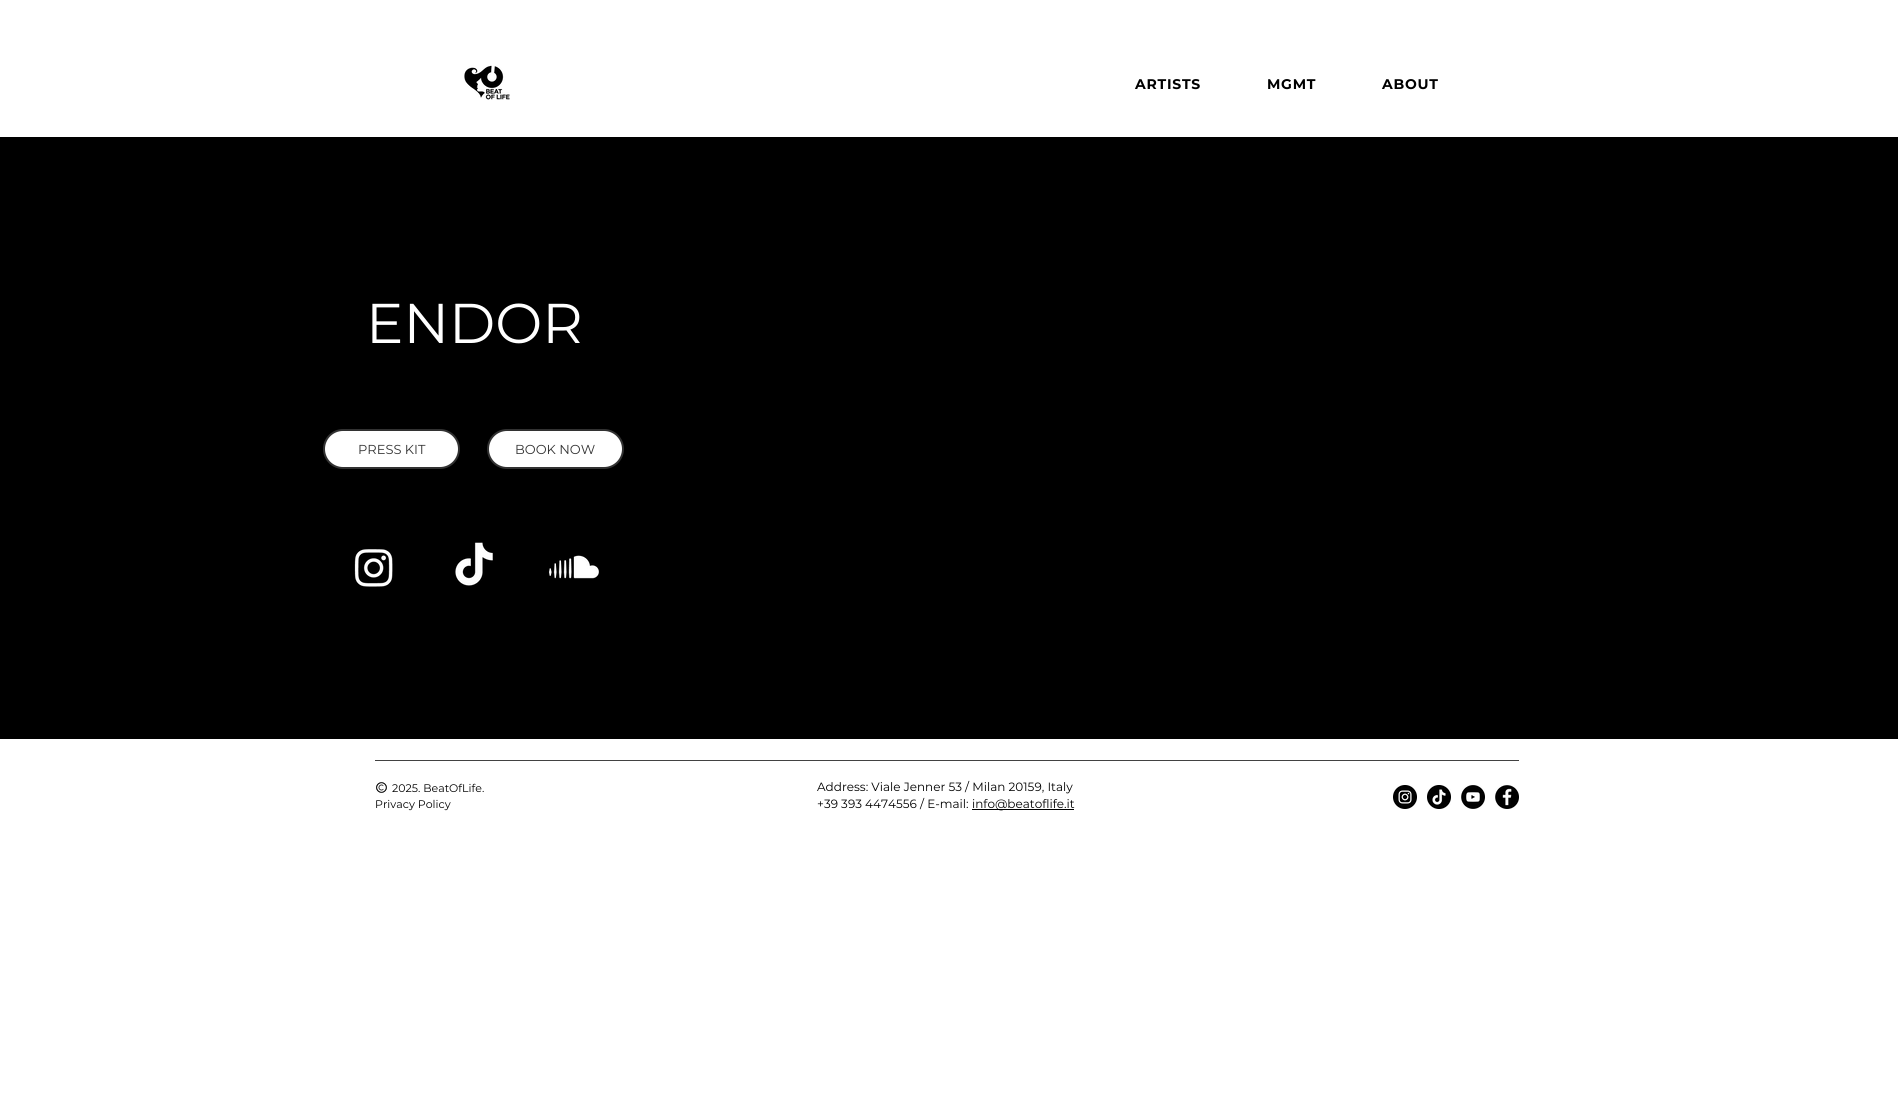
import math
import cairo


def write_spaced(ctx, x, y, s, letter, word):
	ctx.move_to(x, y)
	for ch in s:
		ctx.show_text(ch)
		ctx.rel_move_to(letter + word * (ch == ' '), 0)

def round_path(ctx, x, y, w, h, r):
	ctx.new_sub_path()
	for i, (u, v) in enumerate([(x + w - r, y + h - r), (x + r, y + h - r), (x + r, y + r), (x + w - r, y + r)]):
		ctx.arc(u, v, r, i * math.pi / 2, (i + 1) * math.pi / 2)
	ctx.close_path()

def paste(ctx, path, x, y, w, h):
	ctx.save()
	ctx.set_source_surface(cairo.ImageSurface.create_from_png(path), x, y)
	ctx.rectangle(x, y, w, h)
	ctx.fill()
	ctx.restore()

def draw(ctx):
	ctx.set_source_rgb(1, 1, 1)
	ctx.paint()
	paste(ctx, 'media/1.png', 464, 65, 46, 35)
	ctx.select_font_face('Montserrat', cairo.FONT_SLANT_NORMAL, cairo.FONT_WEIGHT_BOLD)
	ctx.set_font_size(14)
	ctx.set_source_rgb(0, 0, 0)
	for x, y, s in [
		(1135, 89, 'ARTISTS'),
		(1267, 89, 'MGMT'),
		(1382, 89, 'ABOUT'),
	]:
		write_spaced(ctx, x, y, s, 0.75, 0)
	ctx.rectangle(0, 137, 1898, 602)
	ctx.fill()
	ctx.select_font_face('Montserrat')
	ctx.set_font_size(56)
	ctx.set_source_rgb(1, 1, 1)
	ctx.move_to(366, 343)
	ctx.show_text('ENDOR')
	round_path(ctx, 324, 430, 135, 38, 19)
	ctx.fill_preserve()
	ctx.set_source_rgb(0.196, 0.196, 0.196)
	ctx.stroke()
	ctx.set_font_size(13)
	ctx.move_to(358, 454)
	ctx.show_text('PRESS KIT')
	ctx.set_source_rgb(1, 1, 1)
	round_path(ctx, 488, 430, 135, 38, 19)
	ctx.fill_preserve()
	ctx.set_source_rgb(0.196, 0.196, 0.196)
	ctx.stroke()
	ctx.move_to(515, 454)
	ctx.show_text('BOOK NOW')
	paste(ctx, 'media/2.png', 354, 549, 39, 38)
	paste(ctx, 'media/3.png', 455, 542, 38, 44)
	paste(ctx, 'media/4.png', 549, 555, 50, 24)
	ctx.set_source_rgb(0.259, 0.259, 0.259)
	ctx.rectangle(375, 760, 1144, 1)
	ctx.fill()
	paste(ctx, 'media/5.png', 376, 782, 11, 11)
	ctx.set_font_size(11)
	ctx.set_source_rgb(0, 0, 0)
	ctx.move_to(392, 792)
	ctx.show_text('2025. BeatOfLife.')
	ctx.set_font_size(12)
	ctx.move_to(817, 791)
	ctx.show_text('Address: Viale Jenner 53 / Milan 20159, Italy')
	ctx.move_to(817, 808)
	ctx.show_text('+39 393 4474556 / E-mail:')
	ctx.rectangle(972, 809, 102, 1)
	ctx.fill()
	ctx.move_to(972, 808)
	ctx.show_text('info@beatoflife.it')
	ctx.set_font_size(11)
	ctx.move_to(375, 808)
	ctx.show_text('Privacy Policy')
	paste(ctx, 'media/6.png', 1393, 785, 24, 24)
	paste(ctx, 'media/7.png', 1427, 785, 24, 24)
	paste(ctx, 'media/8.png', 1461, 785, 24, 24)
	paste(ctx, 'media/9.png', 1495, 785, 24, 24)


surface = cairo.ImageSurface(cairo.FORMAT_RGB24, 1898, 1114)
ctx = cairo.Context(surface)
options = cairo.FontOptions()
options.set_hint_metrics(cairo.HINT_METRICS_OFF)
options.set_hint_style(cairo.HINT_STYLE_NONE)
ctx.set_font_options(options)
ctx.set_miter_limit(4)
draw(ctx)
surface.write_to_png('image.png')
